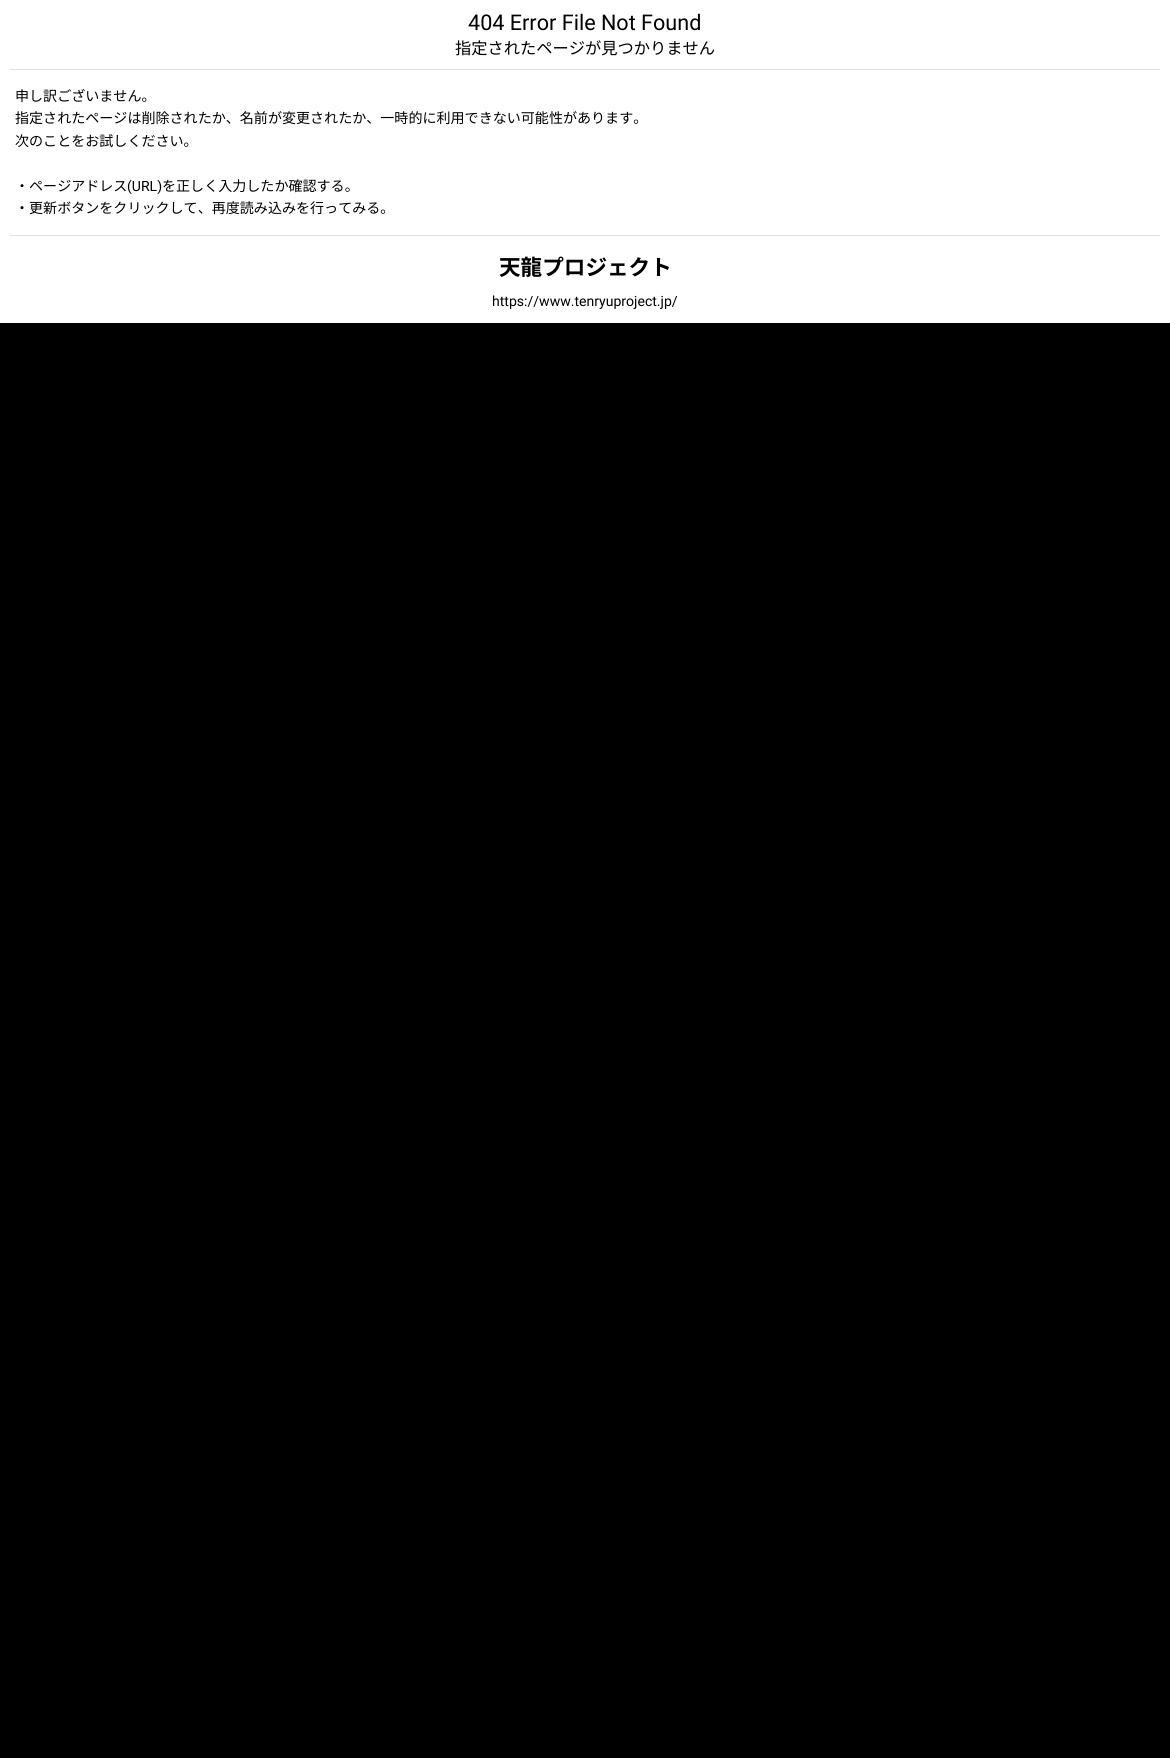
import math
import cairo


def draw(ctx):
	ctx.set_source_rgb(0, 0, 0)
	ctx.paint()
	ctx.set_source_rgb(1, 1, 1)
	ctx.rectangle(0, 0, 1170, 323)
	ctx.fill()
	ctx.select_font_face('Roboto')
	ctx.set_font_size(21.6)
	ctx.set_source_rgb(0, 0, 0)
	ctx.move_to(468, 30)
	ctx.show_text('404 Error File Not Found')
	ctx.select_font_face('Noto Sans JP')
	ctx.set_font_size(16.25)
	ctx.move_to(455, 54)
	ctx.show_text('指定されたページが見つかりません')
	ctx.set_source_rgb(0.878, 0.875, 0.89)
	ctx.rectangle(10, 69, 1150, 1)
	ctx.fill()
	ctx.rectangle(10, 235, 1150, 1)
	ctx.fill()
	ctx.set_font_size(14.05)
	ctx.set_source_rgb(0, 0, 0)
	for x, y, s in [
		(15, 101, '申し訳ございません。'),
		(15, 123, '指定されたページは削除されたか、名前が変更されたか、一時的に利用できない可能性があります。'),
		(15, 146, '次のことをお試しください。'),
		(15, 191, '・ページアドレス'),
	]:
		ctx.move_to(x, y)
		ctx.show_text(s)
	ctx.select_font_face('Roboto')
	ctx.move_to(127, 191)
	ctx.show_text('(URL)')
	ctx.select_font_face('Noto Sans JP')
	ctx.move_to(162, 191)
	ctx.show_text('を正しく入力したか確認する。')
	ctx.move_to(15, 213)
	ctx.show_text('・更新ボタンをクリックして、再度読み込みを行ってみる。')
	ctx.select_font_face('Noto Sans JP', cairo.FONT_SLANT_NORMAL, cairo.FONT_WEIGHT_BOLD)
	ctx.set_font_size(21.6)
	ctx.move_to(499, 275)
	ctx.show_text('天龍プロジェクト')
	ctx.select_font_face('Roboto')
	ctx.set_font_size(14.05)
	ctx.move_to(492, 306)
	ctx.show_text('https://www.tenryuproject.jp/')


surface = cairo.ImageSurface(cairo.FORMAT_RGB24, 1170, 1758)
ctx = cairo.Context(surface)
options = cairo.FontOptions()
options.set_hint_metrics(cairo.HINT_METRICS_OFF)
options.set_hint_style(cairo.HINT_STYLE_NONE)
ctx.set_font_options(options)
ctx.set_miter_limit(4)
draw(ctx)
surface.write_to_png('image.png')
